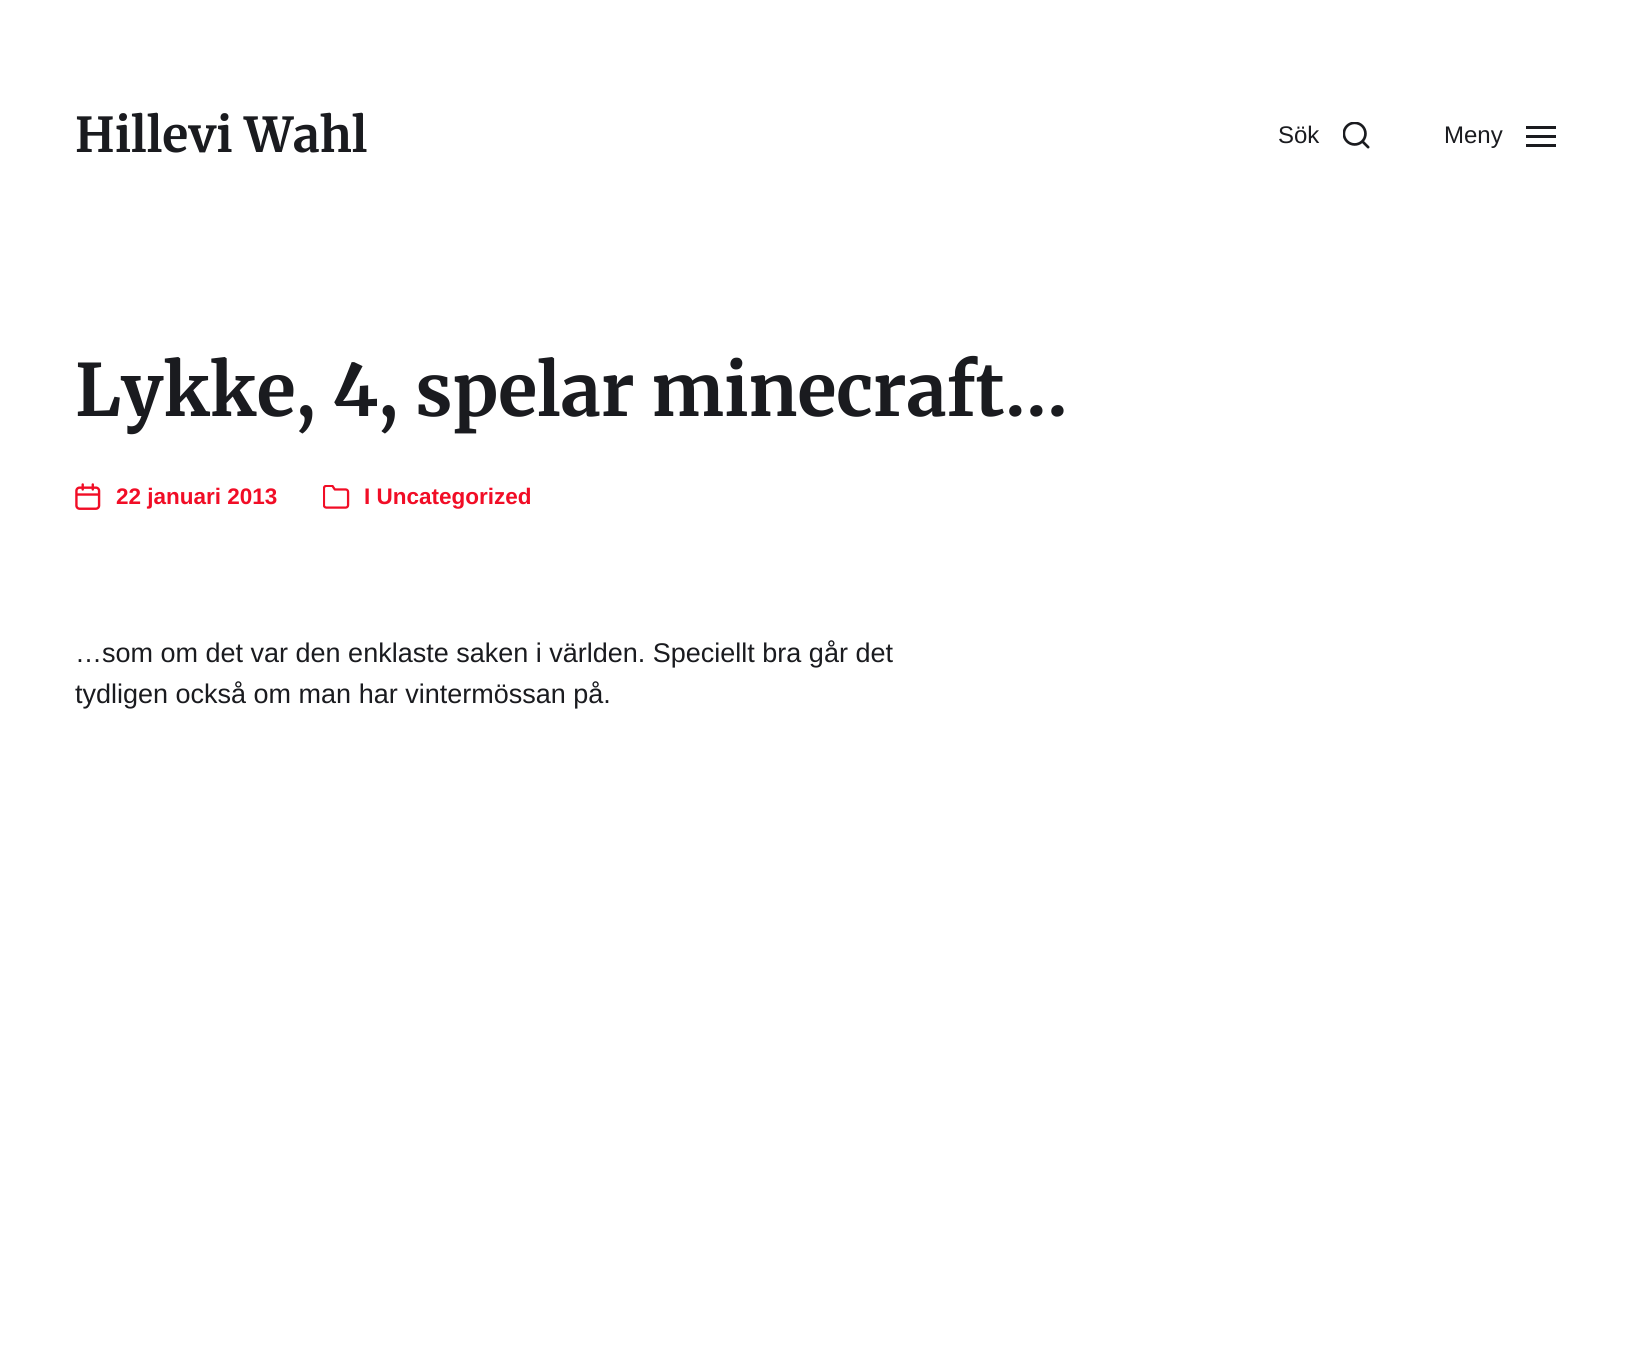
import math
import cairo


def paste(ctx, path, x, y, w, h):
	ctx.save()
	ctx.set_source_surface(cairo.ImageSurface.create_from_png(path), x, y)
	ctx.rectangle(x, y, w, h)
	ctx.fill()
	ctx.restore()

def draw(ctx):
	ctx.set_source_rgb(1, 1, 1)
	ctx.paint()
	ctx.select_font_face('Merriweather', cairo.FONT_SLANT_NORMAL, cairo.FONT_WEIGHT_BOLD)
	ctx.set_font_size(48)
	ctx.set_source_rgb(0.102, 0.106, 0.122)
	ctx.move_to(75, 152)
	ctx.show_text('Hillevi Wahl')
	ctx.select_font_face('Liberation Sans')
	ctx.set_font_size(24)
	ctx.move_to(1278, 143)
	ctx.show_text('Sök')
	paste(ctx, 'media/1.png', 1343, 122, 27, 27)
	ctx.move_to(1444, 143)
	ctx.show_text('Meny')
	ctx.rectangle(1526, 126, 30, 3)
	ctx.rectangle(1526, 135, 30, 3)
	ctx.rectangle(1526, 144, 30, 3)
	ctx.fill()
	ctx.select_font_face('Merriweather', cairo.FONT_SLANT_NORMAL, cairo.FONT_WEIGHT_BOLD)
	ctx.set_font_size(72)
	ctx.move_to(75, 416)
	ctx.show_text('Lykke, 4, spelar minecraft…')
	paste(ctx, 'media/2.png', 75, 483, 26, 27)
	ctx.select_font_face('Liberation Sans', cairo.FONT_SLANT_NORMAL, cairo.FONT_WEIGHT_BOLD)
	ctx.set_font_size(22.5)
	ctx.set_source_rgb(0.945, 0.051, 0.149)
	ctx.move_to(116, 504)
	ctx.show_text('22 januari 2013')
	paste(ctx, 'media/3.png', 323, 485, 27, 24)
	ctx.move_to(364, 504)
	ctx.show_text('I Uncategorized')
	ctx.select_font_face('Liberation Sans')
	ctx.set_font_size(27)
	ctx.set_source_rgb(0.102, 0.106, 0.122)
	ctx.move_to(75, 662)
	ctx.show_text('…som om det var den enklaste saken i världen. Speciellt bra går det')
	ctx.move_to(75, 703)
	ctx.show_text('tydligen också om man har vintermössan på.')


surface = cairo.ImageSurface(cairo.FORMAT_RGB24, 1630, 1369)
ctx = cairo.Context(surface)
options = cairo.FontOptions()
options.set_hint_metrics(cairo.HINT_METRICS_OFF)
options.set_hint_style(cairo.HINT_STYLE_NONE)
ctx.set_font_options(options)
ctx.set_miter_limit(4)
draw(ctx)
surface.write_to_png('image.png')
